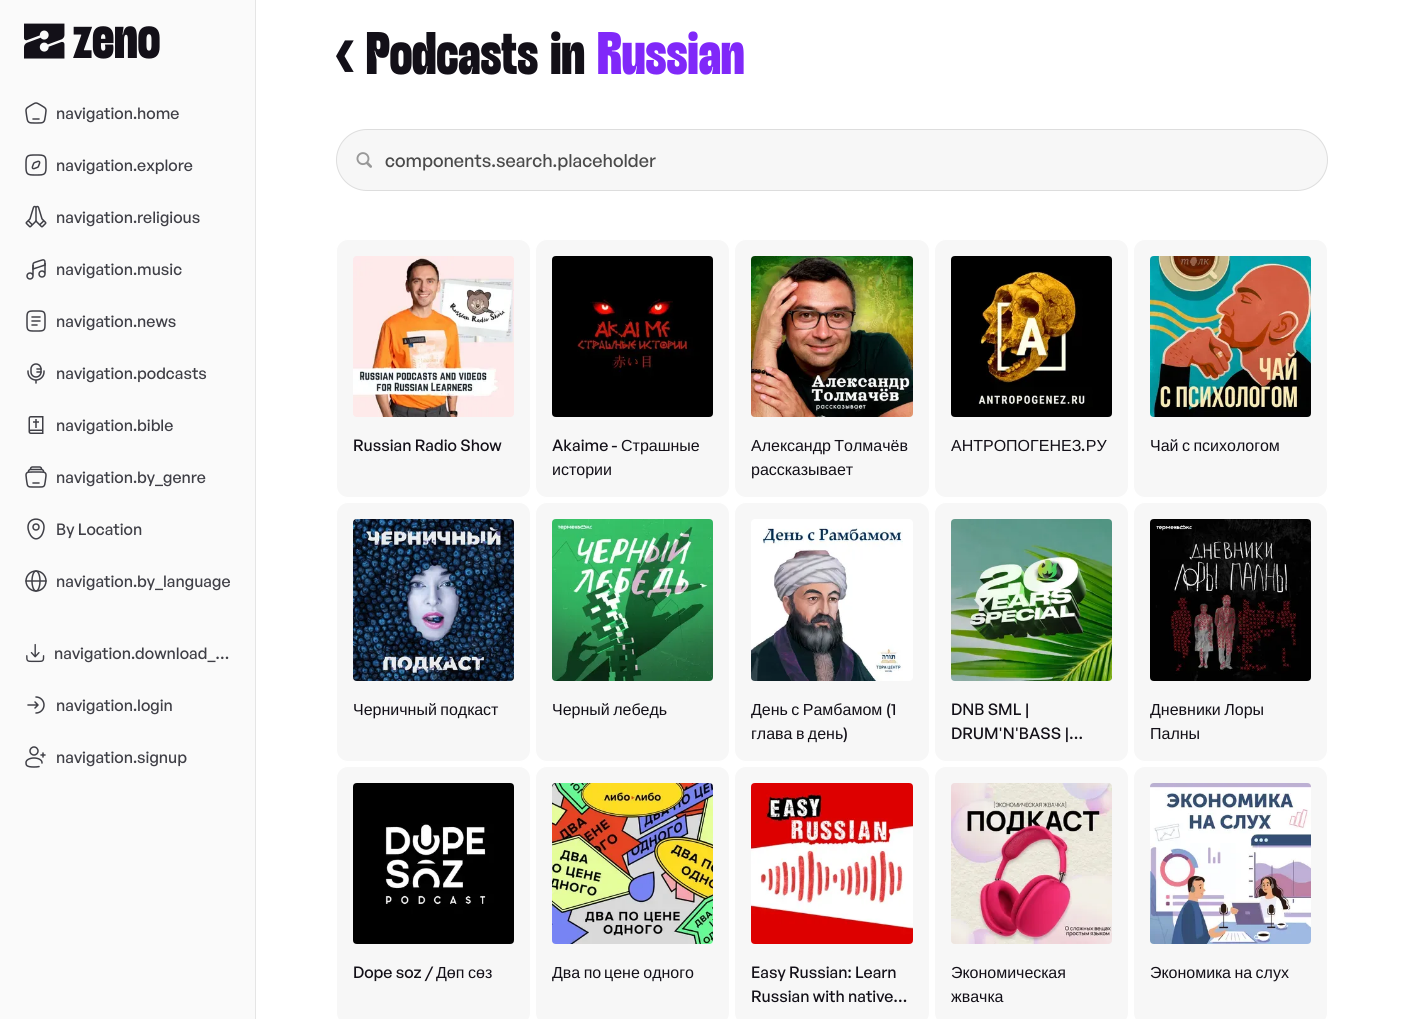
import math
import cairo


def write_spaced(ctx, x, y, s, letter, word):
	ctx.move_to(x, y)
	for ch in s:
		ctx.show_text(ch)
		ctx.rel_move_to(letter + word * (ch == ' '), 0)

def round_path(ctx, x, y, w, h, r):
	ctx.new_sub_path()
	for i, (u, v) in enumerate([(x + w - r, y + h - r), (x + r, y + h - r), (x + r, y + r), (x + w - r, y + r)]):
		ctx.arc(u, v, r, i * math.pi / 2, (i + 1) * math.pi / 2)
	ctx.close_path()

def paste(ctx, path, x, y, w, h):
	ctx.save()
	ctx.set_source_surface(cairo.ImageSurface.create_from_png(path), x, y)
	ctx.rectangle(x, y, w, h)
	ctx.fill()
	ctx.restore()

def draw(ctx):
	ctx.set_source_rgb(1, 1, 1)
	ctx.paint()
	ctx.set_source_rgb(0.898, 0.898, 0.898)
	ctx.rectangle(255, 0, 1, 1019)
	ctx.fill()
	ctx.set_source_rgb(0.98, 0.98, 0.98)
	ctx.rectangle(0, 0, 255, 1019)
	ctx.fill()
	paste(ctx, 'media/1.png', 24, 23, 41, 36)
	ctx.select_font_face('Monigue')
	ctx.set_font_size(60)
	ctx.set_source_rgb(0.075, 0.063, 0.094)
	ctx.move_to(73, 58)
	ctx.show_text('zeno')
	paste(ctx, 'media/2.png', 25, 102, 22, 22)
	ctx.select_font_face('General Sans Medium')
	ctx.set_font_size(16)
	ctx.set_source_rgb(0.247, 0.247, 0.275)
	ctx.move_to(56, 119)
	ctx.show_text('navigation.home')
	paste(ctx, 'media/3.png', 25, 154, 22, 22)
	ctx.move_to(56, 171)
	ctx.show_text('navigation.explore')
	paste(ctx, 'media/4.png', 25, 205, 22, 23)
	ctx.move_to(56, 223)
	ctx.show_text('navigation.religious')
	paste(ctx, 'media/5.png', 26, 259, 20, 21)
	ctx.move_to(56, 275)
	ctx.show_text('navigation.music')
	paste(ctx, 'media/6.png', 26, 310, 20, 22)
	ctx.move_to(56, 327)
	ctx.show_text('navigation.news')
	paste(ctx, 'media/7.png', 27, 363, 18, 21)
	ctx.move_to(56, 379)
	ctx.show_text('navigation.podcasts')
	paste(ctx, 'media/8.png', 28, 416, 16, 18)
	ctx.move_to(56, 431)
	ctx.show_text('navigation.bible')
	paste(ctx, 'media/9.png', 25, 466, 22, 22)
	ctx.move_to(56, 483)
	ctx.show_text('navigation.by_genre')
	ctx.new_path()
	ctx.move_to(28, 527)
	ctx.curve_to(28, 516.5, 44, 516.5, 44, 527)
	ctx.curve_to(44, 530, 43, 533, 41.5, 535.5)
	ctx.curve_to(35, 544, 28, 534.5, 28, 527)
	ctx.close_path()
	ctx.set_line_width(1.5)
	ctx.stroke()
	ctx.arc(36, 527, 3, 0, 2 * math.pi)
	ctx.stroke()
	ctx.move_to(56, 535)
	ctx.show_text('By Location')
	paste(ctx, 'media/10.png', 25, 570, 22, 22)
	ctx.move_to(56, 587)
	ctx.show_text('navigation.by_language')
	paste(ctx, 'media/11.png', 26, 643, 19, 20)
	ctx.move_to(54, 659)
	ctx.show_text('navigation.download_…')
	paste(ctx, 'media/12.png', 27, 696, 18, 18)
	ctx.move_to(56, 711)
	ctx.show_text('navigation.login')
	paste(ctx, 'media/13.png', 25, 746, 21, 22)
	ctx.move_to(56, 763)
	ctx.show_text('navigation.signup')
	ctx.select_font_face('Monigue')
	ctx.set_font_size(60)
	ctx.set_source_rgb(0.075, 0.063, 0.094)
	ctx.move_to(336, 74)
	ctx.show_text('< Podcasts in')
	ctx.set_source_rgb(0.502, 0.157, 0.973)
	ctx.move_to(597, 74)
	ctx.show_text('Russian')
	ctx.set_source_rgb(0.965, 0.965, 0.965)
	round_path(ctx, 336.5, 129.5, 991, 61, 30.5)
	ctx.fill_preserve()
	ctx.set_source_rgb(0.867, 0.867, 0.867)
	ctx.set_line_width(1)
	ctx.stroke()
	paste(ctx, 'media/14.png', 356, 152, 16, 16)
	ctx.select_font_face('General Sans Medium')
	ctx.set_font_size(18)
	ctx.set_source_rgb(0.29, 0.29, 0.29)
	ctx.move_to(385, 167)
	ctx.show_text('components.search.placeholder')
	ctx.set_source_rgb(0.965, 0.965, 0.965)
	round_path(ctx, 336.5, 239.5, 194, 258, 11.5)
	ctx.fill_preserve()
	ctx.set_source_rgb(1, 1, 1)
	ctx.stroke()
	paste(ctx, 'media/15.png', 353, 256, 161, 161)
	ctx.set_font_size(16)
	ctx.set_source_rgb(0.075, 0.063, 0.094)
	ctx.move_to(353, 451)
	ctx.show_text('Russian Radio Show')
	ctx.set_source_rgb(0.965, 0.965, 0.965)
	round_path(ctx, 535.5, 239.5, 194, 258, 11.5)
	ctx.fill_preserve()
	ctx.set_source_rgb(1, 1, 1)
	ctx.stroke()
	paste(ctx, 'media/16.png', 552, 256, 161, 161)
	ctx.set_source_rgb(0.075, 0.063, 0.094)
	ctx.move_to(552, 451)
	ctx.show_text('Akaime -')
	ctx.select_font_face('Liberation Sans')
	ctx.move_to(621, 451)
	ctx.show_text('Страшные')
	ctx.move_to(552, 475)
	ctx.show_text('истории')
	ctx.set_source_rgb(0.965, 0.965, 0.965)
	round_path(ctx, 734.5, 239.5, 195, 258, 11.5)
	ctx.fill_preserve()
	ctx.set_source_rgb(1, 1, 1)
	ctx.stroke()
	paste(ctx, 'media/17.png', 751, 256, 162, 161)
	ctx.set_source_rgb(0.075, 0.063, 0.094)
	write_spaced(ctx, 751, 451, 'Александр Толмачёв', 0, -1)
	ctx.move_to(751, 475)
	ctx.show_text('рассказывает')
	ctx.set_source_rgb(0.965, 0.965, 0.965)
	round_path(ctx, 934.5, 239.5, 194, 258, 11.5)
	ctx.fill_preserve()
	ctx.set_source_rgb(1, 1, 1)
	ctx.stroke()
	paste(ctx, 'media/18.png', 951, 256, 161, 161)
	ctx.set_source_rgb(0.075, 0.063, 0.094)
	ctx.move_to(951, 451)
	ctx.show_text('АНТРОПОГЕНЕЗ РУ')
	ctx.select_font_face('General Sans Medium')
	ctx.move_to(1081, 451)
	ctx.show_text('.')
	ctx.set_source_rgb(0.965, 0.965, 0.965)
	round_path(ctx, 1133.5, 239.5, 194, 258, 11.5)
	ctx.fill_preserve()
	ctx.set_source_rgb(1, 1, 1)
	ctx.stroke()
	paste(ctx, 'media/19.png', 1150, 256, 161, 161)
	ctx.select_font_face('Liberation Sans')
	ctx.set_source_rgb(0.075, 0.063, 0.094)
	write_spaced(ctx, 1150, 451, 'Чай с психологом', 0, -1)
	ctx.set_source_rgb(0.965, 0.965, 0.965)
	round_path(ctx, 336.5, 502.5, 194, 259, 11.5)
	ctx.fill_preserve()
	ctx.set_source_rgb(1, 1, 1)
	ctx.stroke()
	paste(ctx, 'media/20.png', 353, 519, 161, 162)
	ctx.set_source_rgb(0.075, 0.063, 0.094)
	write_spaced(ctx, 353, 715, 'Черничный подкаст', 0, -1)
	ctx.set_source_rgb(0.965, 0.965, 0.965)
	round_path(ctx, 535.5, 502.5, 194, 259, 11.5)
	ctx.fill_preserve()
	ctx.set_source_rgb(1, 1, 1)
	ctx.stroke()
	paste(ctx, 'media/21.png', 552, 519, 161, 162)
	ctx.set_source_rgb(0.075, 0.063, 0.094)
	write_spaced(ctx, 552, 715, 'Черный лебедь', 0, -1)
	ctx.set_source_rgb(0.965, 0.965, 0.965)
	round_path(ctx, 734.5, 502.5, 195, 259, 11.5)
	ctx.fill_preserve()
	ctx.set_source_rgb(1, 1, 1)
	ctx.stroke()
	round_path(ctx, 751, 519, 162, 162, 4)
	ctx.fill()
	paste(ctx, 'media/22.png', 751, 526, 152, 155)
	ctx.set_source_rgb(0.075, 0.063, 0.094)
	write_spaced(ctx, 751, 715, 'День с Рамбамом', 0, -1)
	ctx.select_font_face('General Sans Medium')
	ctx.move_to(886, 715)
	ctx.show_text('(1')
	ctx.select_font_face('Liberation Sans')
	write_spaced(ctx, 751, 739, 'глава в день', 0, -1)
	ctx.select_font_face('General Sans Medium')
	ctx.move_to(843, 739)
	ctx.show_text(')')
	ctx.set_source_rgb(0.965, 0.965, 0.965)
	round_path(ctx, 934.5, 502.5, 194, 259, 11.5)
	ctx.fill_preserve()
	ctx.set_source_rgb(1, 1, 1)
	ctx.stroke()
	paste(ctx, 'media/23.png', 951, 519, 161, 162)
	ctx.set_source_rgb(0.075, 0.063, 0.094)
	ctx.move_to(951, 715)
	ctx.show_text('DNB SML |')
	ctx.move_to(951, 739)
	ctx.show_text('DRUM\'N\'BASS |…')
	ctx.set_source_rgb(0.965, 0.965, 0.965)
	round_path(ctx, 1133.5, 502.5, 194, 259, 11.5)
	ctx.fill_preserve()
	ctx.set_source_rgb(1, 1, 1)
	ctx.stroke()
	paste(ctx, 'media/24.png', 1150, 519, 161, 162)
	ctx.save()
	ctx.rectangle(1150, 697, 161, 48)
	ctx.clip()
	ctx.select_font_face('Liberation Sans')
	ctx.set_source_rgb(0.075, 0.063, 0.094)
	write_spaced(ctx, 1150, 715, 'Дневники Лоры', 0, -1)
	ctx.restore()
	ctx.select_font_face('Liberation Sans')
	ctx.set_source_rgb(0.075, 0.063, 0.094)
	ctx.move_to(1150, 739)
	ctx.show_text('Палны')
	ctx.set_source_rgb(0.965, 0.965, 0.965)
	round_path(ctx, 336.5, 766.5, 194, 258, 11.5)
	ctx.fill_preserve()
	ctx.set_source_rgb(1, 1, 1)
	ctx.stroke()
	paste(ctx, 'media/25.png', 353, 783, 161, 161)
	ctx.select_font_face('General Sans Medium')
	ctx.set_source_rgb(0.075, 0.063, 0.094)
	ctx.move_to(353, 978)
	ctx.show_text('Dope soz /')
	ctx.select_font_face('Liberation Sans')
	ctx.move_to(436, 978)
	ctx.show_text('Дөп')
	ctx.move_to(468, 978)
	ctx.show_text('сөз')
	ctx.set_source_rgb(0.965, 0.965, 0.965)
	round_path(ctx, 535.5, 766.5, 194, 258, 11.5)
	ctx.fill_preserve()
	ctx.set_source_rgb(1, 1, 1)
	ctx.stroke()
	paste(ctx, 'media/26.png', 552, 783, 161, 161)
	ctx.set_source_rgb(0.075, 0.063, 0.094)
	write_spaced(ctx, 552, 978, 'Два по', 0, -1)
	write_spaced(ctx, 604, 978, 'цене одного', 0, -1)
	ctx.set_source_rgb(0.965, 0.965, 0.965)
	round_path(ctx, 734.5, 766.5, 195, 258, 11.5)
	ctx.fill_preserve()
	ctx.set_source_rgb(1, 1, 1)
	ctx.stroke()
	paste(ctx, 'media/27.png', 751, 783, 162, 161)
	ctx.select_font_face('General Sans Medium')
	ctx.set_source_rgb(0.075, 0.063, 0.094)
	ctx.move_to(751, 978)
	ctx.show_text('Easy Russian: Learn')
	ctx.move_to(751, 1002)
	ctx.show_text('Russian with native…')
	ctx.set_source_rgb(0.965, 0.965, 0.965)
	round_path(ctx, 934.5, 766.5, 194, 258, 11.5)
	ctx.fill_preserve()
	ctx.set_source_rgb(1, 1, 1)
	ctx.stroke()
	paste(ctx, 'media/28.png', 951, 783, 161, 161)
	ctx.select_font_face('Liberation Sans')
	ctx.set_source_rgb(0.075, 0.063, 0.094)
	ctx.move_to(951, 978)
	ctx.show_text('Экономическая')
	ctx.move_to(951, 1002)
	ctx.show_text('жвачка')
	ctx.set_source_rgb(0.965, 0.965, 0.965)
	round_path(ctx, 1133.5, 766.5, 194, 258, 11.5)
	ctx.fill_preserve()
	ctx.set_source_rgb(1, 1, 1)
	ctx.stroke()
	paste(ctx, 'media/29.png', 1150, 783, 161, 161)
	ctx.set_source_rgb(0.075, 0.063, 0.094)
	write_spaced(ctx, 1150, 978, 'Экономика на слух', 0, -1)


surface = cairo.ImageSurface(cairo.FORMAT_RGB24, 1408, 1019)
ctx = cairo.Context(surface)
options = cairo.FontOptions()
options.set_hint_metrics(cairo.HINT_METRICS_OFF)
options.set_hint_style(cairo.HINT_STYLE_NONE)
ctx.set_font_options(options)
ctx.set_miter_limit(4)
draw(ctx)
surface.write_to_png('image.png')
